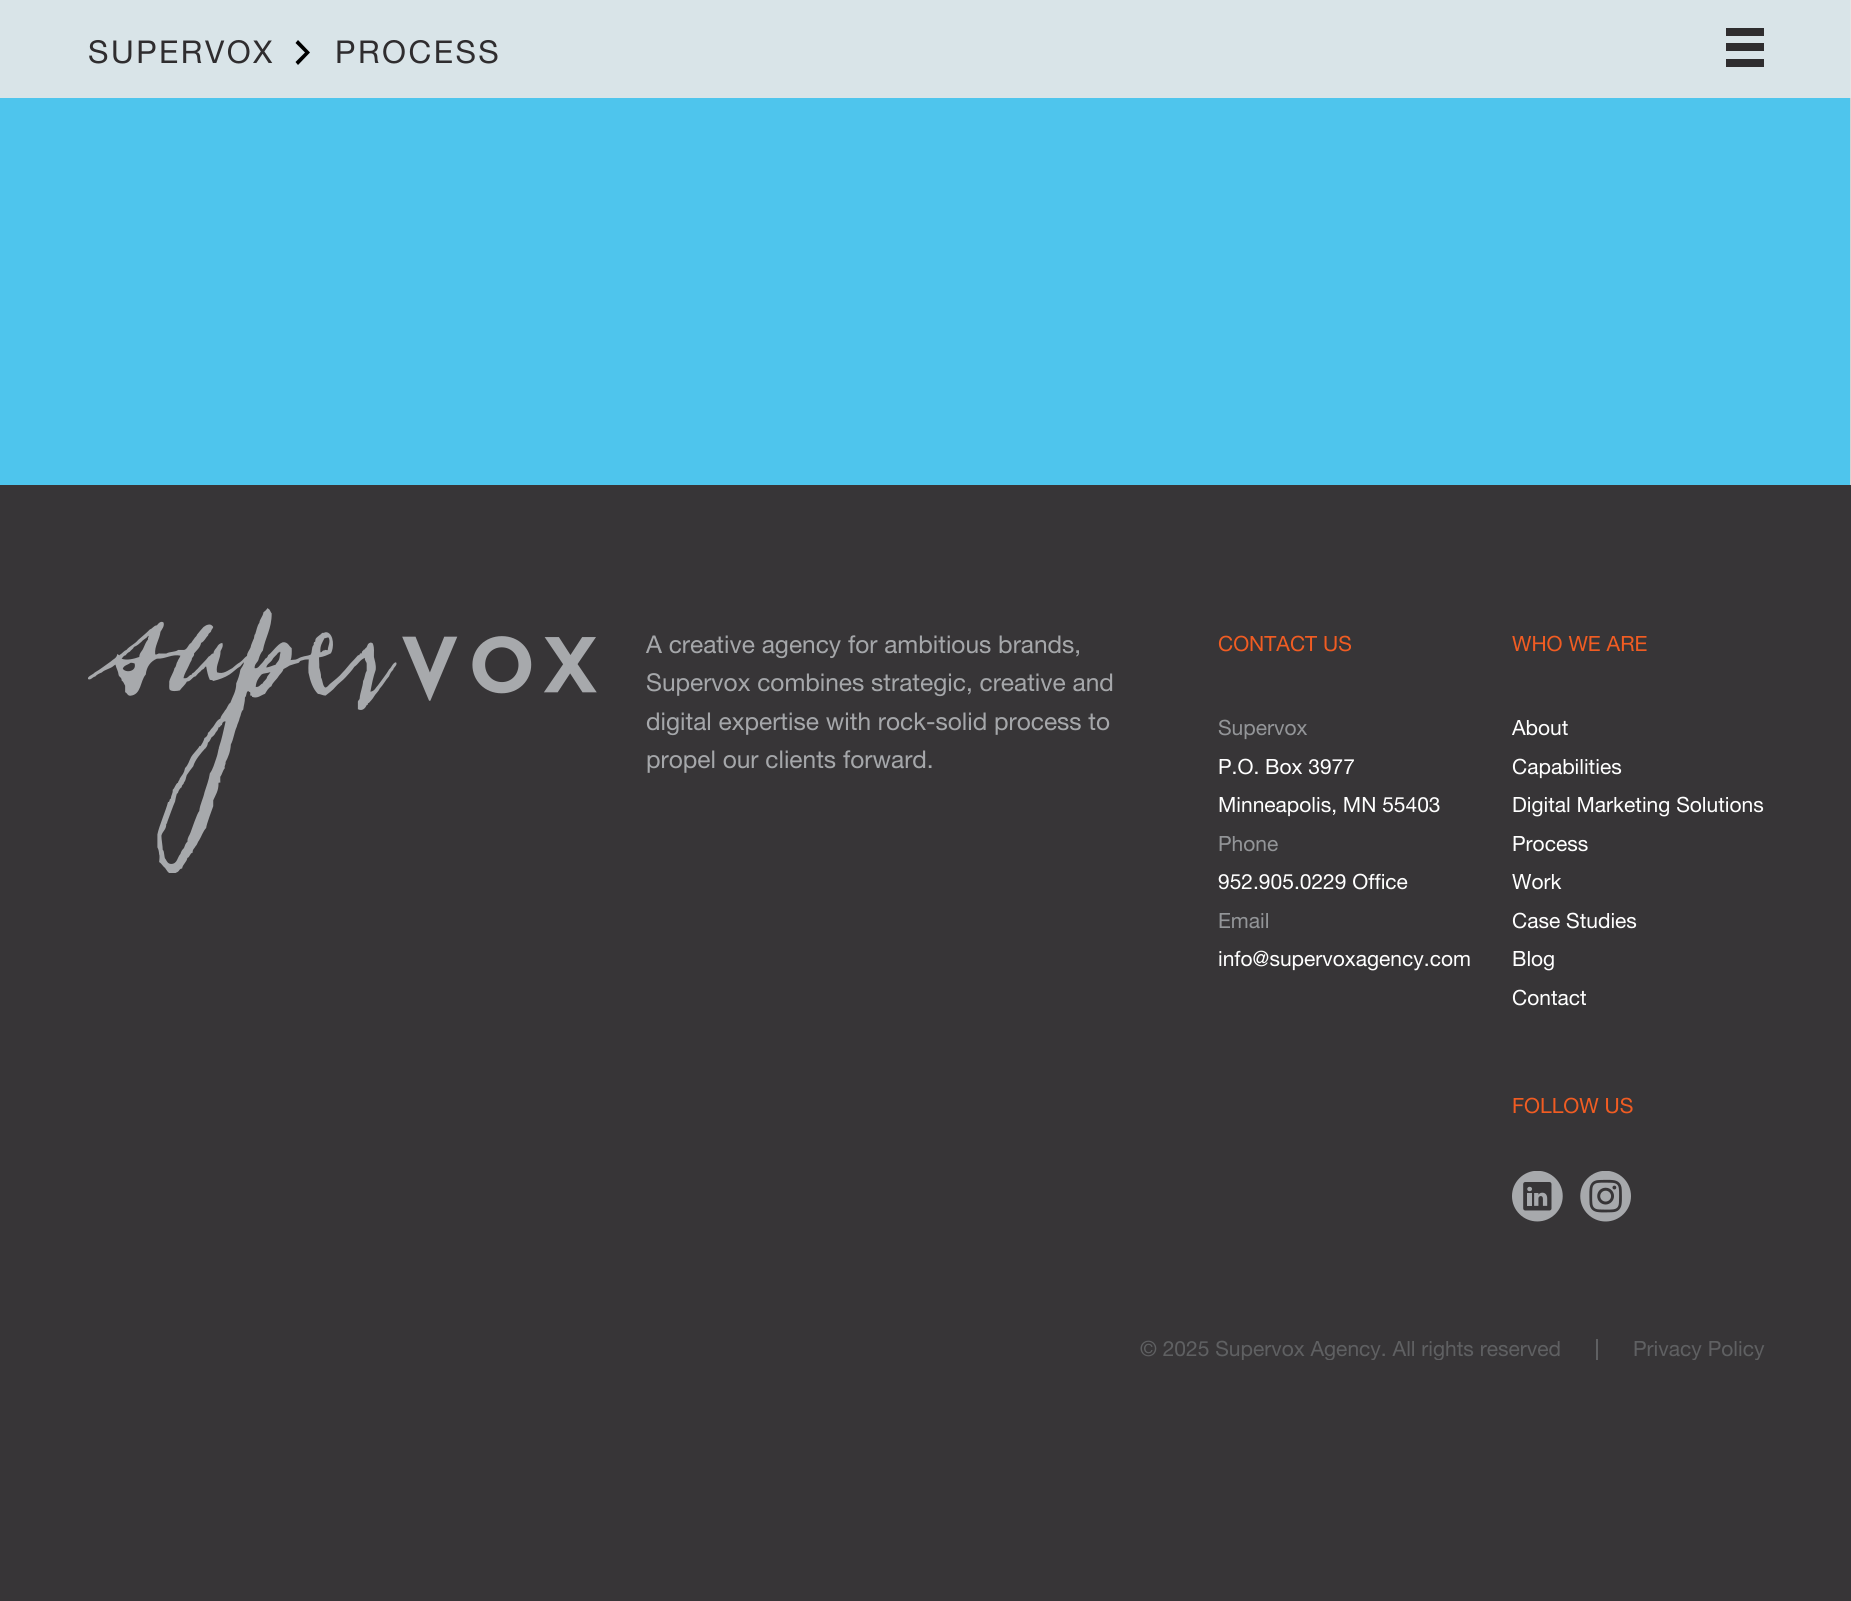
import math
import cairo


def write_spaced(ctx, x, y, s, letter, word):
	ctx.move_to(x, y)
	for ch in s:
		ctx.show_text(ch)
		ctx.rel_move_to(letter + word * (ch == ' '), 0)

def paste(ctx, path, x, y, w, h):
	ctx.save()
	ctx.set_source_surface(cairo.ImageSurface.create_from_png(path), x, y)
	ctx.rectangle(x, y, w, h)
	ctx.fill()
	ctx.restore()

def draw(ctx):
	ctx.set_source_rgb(0.216, 0.208, 0.216)
	ctx.paint()
	ctx.set_source_rgb(0.306, 0.773, 0.929)
	ctx.rectangle(0, 98, 1850, 387)
	ctx.fill()
	ctx.set_source_rgb(0.851, 0.894, 0.91)
	ctx.rectangle(0, 0, 1850, 98)
	ctx.fill()
	ctx.set_source_rgb(0.831, 0.831, 0.831)
	ctx.rectangle(1850, 98, 1, 387)
	ctx.fill()
	ctx.set_source_rgb(0.898, 0.898, 0.898)
	ctx.rectangle(1850, 0, 1, 98)
	ctx.fill()
	ctx.set_source_rgb(0, 0, 0)
	ctx.new_path()
	ctx.move_to(295.5, 43)
	ctx.line_to(305, 52.5)
	ctx.line_to(295.5, 62)
	ctx.line_to(298, 65)
	ctx.line_to(310, 52.5)
	ctx.line_to(298, 40)
	ctx.close_path()
	ctx.fill()
	ctx.select_font_face('Helvetica Neue')
	ctx.set_font_size(31.5)
	ctx.set_source_rgb(0.184, 0.176, 0.184)
	write_spaced(ctx, 88, 63, 'SUPERVOX', 2.5, 0)
	write_spaced(ctx, 335, 63, 'PROCESS', 2.5, 0)
	ctx.rectangle(1726, 28, 38, 8)
	ctx.rectangle(1726, 43, 38, 8)
	ctx.rectangle(1726, 59, 38, 8)
	ctx.fill()
	paste(ctx, 'media/1.png', 88, 608, 509, 265)
	ctx.set_font_size(24.5)
	ctx.set_source_rgb(0.647, 0.655, 0.667)
	for x, y, s in [
		(646, 653, 'A creative agency for ambitious brands,'),
		(646, 691, 'Supervox combines strategic, creative and'),
		(646, 730, 'digital expertise with rock-solid process to'),
		(646, 768, 'propel our clients forward.'),
	]:
		ctx.move_to(x, y)
		ctx.show_text(s)
	ctx.set_font_size(21)
	ctx.set_source_rgb(0.945, 0.361, 0.133)
	ctx.move_to(1218, 651)
	ctx.show_text('CONTACT US')
	ctx.set_source_rgb(0.576, 0.584, 0.596)
	ctx.move_to(1218, 735)
	ctx.show_text('Supervox')
	ctx.set_source_rgb(1, 1, 1)
	ctx.move_to(1218, 774)
	ctx.show_text('P.O. Box 3977')
	ctx.move_to(1218, 812)
	ctx.show_text('Minneapolis, MN 55403')
	ctx.set_source_rgb(0.576, 0.584, 0.596)
	ctx.move_to(1218, 851)
	ctx.show_text('Phone')
	ctx.set_source_rgb(1, 1, 1)
	ctx.move_to(1218, 889)
	ctx.show_text('952.905.0229 Office')
	ctx.set_source_rgb(0.576, 0.584, 0.596)
	ctx.move_to(1218, 928)
	ctx.show_text('Email')
	ctx.set_source_rgb(1, 1, 1)
	ctx.move_to(1218, 966)
	ctx.show_text('info@supervoxagency.com')
	ctx.set_source_rgb(0.945, 0.361, 0.133)
	ctx.move_to(1512, 651)
	ctx.show_text('WHO WE ARE')
	ctx.set_source_rgb(1, 1, 1)
	for x, y, s in [
		(1512, 735, 'About'),
		(1512, 774, 'Capabilities'),
		(1512, 812, 'Digital Marketing Solutions'),
		(1512, 851, 'Process'),
		(1512, 889, 'Work'),
		(1512, 928, 'Case Studies'),
		(1512, 966, 'Blog'),
		(1512, 1005, 'Contact'),
	]:
		ctx.move_to(x, y)
		ctx.show_text(s)
	ctx.set_source_rgb(0.945, 0.361, 0.133)
	ctx.move_to(1512, 1113)
	ctx.show_text('FOLLOW US')
	paste(ctx, 'media/2.png', 1512, 1171, 51, 51)
	paste(ctx, 'media/3.png', 1580, 1171, 51, 51)
	ctx.save()
	ctx.rectangle(1139, 1339, 660, 21)
	ctx.clip()
	ctx.set_source_rgb(0.373, 0.376, 0.384)
	ctx.move_to(1140, 1356)
	ctx.show_text('© 2025 Supervox Agency. All rights reserved')
	ctx.restore()
	ctx.set_source_rgb(0.373, 0.376, 0.384)
	ctx.rectangle(1596, 1339, 2, 21)
	ctx.fill()
	ctx.save()
	ctx.rectangle(1139, 1339, 660, 21)
	ctx.clip()
	ctx.move_to(1633, 1356)
	ctx.show_text('Privacy Policy')
	ctx.restore()


surface = cairo.ImageSurface(cairo.FORMAT_RGB24, 1851, 1601)
ctx = cairo.Context(surface)
options = cairo.FontOptions()
options.set_hint_metrics(cairo.HINT_METRICS_OFF)
options.set_hint_style(cairo.HINT_STYLE_NONE)
ctx.set_font_options(options)
ctx.set_miter_limit(4)
draw(ctx)
surface.write_to_png('image.png')
